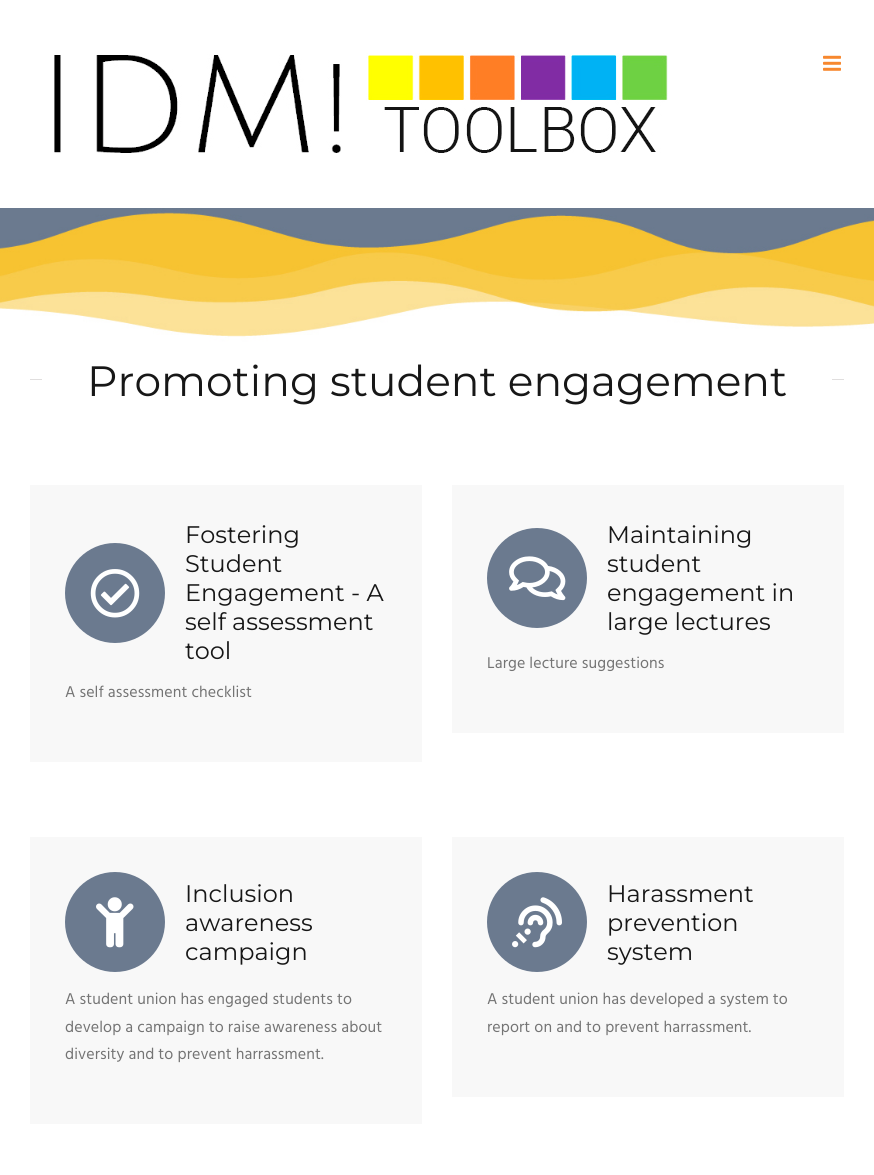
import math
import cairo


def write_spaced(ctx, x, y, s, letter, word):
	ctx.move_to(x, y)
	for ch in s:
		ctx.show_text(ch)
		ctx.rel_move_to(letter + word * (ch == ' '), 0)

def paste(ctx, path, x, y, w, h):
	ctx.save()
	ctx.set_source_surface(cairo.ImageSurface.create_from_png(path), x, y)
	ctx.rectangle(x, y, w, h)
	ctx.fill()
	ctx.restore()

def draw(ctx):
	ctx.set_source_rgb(1, 1, 1)
	ctx.paint()
	paste(ctx, 'media/1.png', 54, 53, 614, 100)
	paste(ctx, 'media/2.png', 823, 55, 18, 16)
	paste(ctx, 'media/3.png', 0, 208, 874, 150)
	ctx.set_source_rgb(0.878, 0.871, 0.871)
	ctx.rectangle(30, 379, 12, 1)
	ctx.fill()
	ctx.select_font_face('Montserrat Thin')
	ctx.set_font_size(42.4)
	ctx.set_source_rgb(0.09, 0.09, 0.09)
	ctx.move_to(87, 396)
	ctx.show_text('Promoting student engagement')
	ctx.set_source_rgb(0.878, 0.871, 0.871)
	ctx.rectangle(832, 379, 12, 1)
	ctx.fill()
	ctx.set_source_rgb(0.969, 0.969, 0.969)
	ctx.rectangle(30, 485, 392, 277)
	ctx.fill()
	ctx.set_source_rgb(0.42, 0.478, 0.561)
	ctx.arc(115, 593, 50, 0, 2 * math.pi)
	ctx.fill()
	paste(ctx, 'media/4.png', 90, 569, 50, 49)
	ctx.set_font_size(24)
	ctx.set_source_rgb(0.09, 0.09, 0.09)
	for x, y, s in [
		(185, 543, 'Fostering'),
		(185, 572, 'Student'),
		(185, 601, 'Engagement - A'),
		(185, 630, 'self assessment'),
		(185, 659, 'tool'),
	]:
		ctx.move_to(x, y)
		ctx.show_text(s)
	ctx.select_font_face('Hind')
	ctx.set_font_size(16)
	ctx.set_source_rgb(0.455, 0.455, 0.455)
	write_spaced(ctx, 65, 697, 'A self assessment checklist', 0.1, 0)
	ctx.set_source_rgb(0.969, 0.969, 0.969)
	ctx.rectangle(452, 485, 392, 248)
	ctx.fill()
	ctx.set_source_rgb(0.42, 0.478, 0.561)
	ctx.arc(537, 578, 50, 0, 2 * math.pi)
	ctx.fill()
	paste(ctx, 'media/5.png', 509, 556, 57, 45)
	ctx.select_font_face('Montserrat Thin')
	ctx.set_font_size(24)
	ctx.set_source_rgb(0.09, 0.09, 0.09)
	for x, y, s in [
		(607, 543, 'Maintaining'),
		(607, 572, 'student'),
		(607, 601, 'engagement in'),
		(607, 630, 'large lectures'),
	]:
		ctx.move_to(x, y)
		ctx.show_text(s)
	ctx.select_font_face('Hind')
	ctx.set_font_size(16)
	ctx.set_source_rgb(0.455, 0.455, 0.455)
	write_spaced(ctx, 487, 668, 'Large lecture suggestions', 0.1, 0)
	ctx.set_source_rgb(0.969, 0.969, 0.969)
	ctx.rectangle(30, 837, 392, 287)
	ctx.fill()
	ctx.set_source_rgb(0.42, 0.478, 0.561)
	ctx.arc(115, 922, 50, 0, 2 * math.pi)
	ctx.fill()
	paste(ctx, 'media/6.png', 96, 897, 38, 51)
	ctx.select_font_face('Montserrat Thin')
	ctx.set_font_size(24)
	ctx.set_source_rgb(0.09, 0.09, 0.09)
	for x, y, s in [
		(185, 902, 'Inclusion'),
		(185, 931, 'awareness'),
		(185, 960, 'campaign'),
	]:
		ctx.move_to(x, y)
		ctx.show_text(s)
	ctx.select_font_face('Hind')
	ctx.set_font_size(16)
	ctx.set_source_rgb(0.455, 0.455, 0.455)
	for x, y, s in [
		(65, 1004, 'A student union has engaged students to'),
		(65, 1032, 'develop a campaign to raise awareness about'),
		(65, 1059, 'diversity and to prevent harrassment.'),
	]:
		write_spaced(ctx, x, y, s, 0.1, 0)
	ctx.set_source_rgb(0.969, 0.969, 0.969)
	ctx.rectangle(452, 837, 392, 260)
	ctx.fill()
	ctx.set_source_rgb(0.42, 0.478, 0.561)
	ctx.arc(537, 922, 50, 0, 2 * math.pi)
	ctx.fill()
	paste(ctx, 'media/7.png', 512, 897, 50, 51)
	ctx.select_font_face('Montserrat Thin')
	ctx.set_font_size(24)
	ctx.set_source_rgb(0.09, 0.09, 0.09)
	for x, y, s in [
		(607, 902, 'Harassment'),
		(607, 931, 'prevention'),
		(607, 960, 'system'),
	]:
		ctx.move_to(x, y)
		ctx.show_text(s)
	ctx.select_font_face('Hind')
	ctx.set_font_size(16)
	ctx.set_source_rgb(0.455, 0.455, 0.455)
	write_spaced(ctx, 487, 1004, 'A student union has developed a system to', 0.1, 0)
	write_spaced(ctx, 487, 1032, 'report on and to prevent harrassment.', 0.1, 0)


surface = cairo.ImageSurface(cairo.FORMAT_RGB24, 874, 1175)
ctx = cairo.Context(surface)
options = cairo.FontOptions()
options.set_hint_metrics(cairo.HINT_METRICS_OFF)
options.set_hint_style(cairo.HINT_STYLE_NONE)
ctx.set_font_options(options)
ctx.set_miter_limit(4)
draw(ctx)
surface.write_to_png('image.png')
